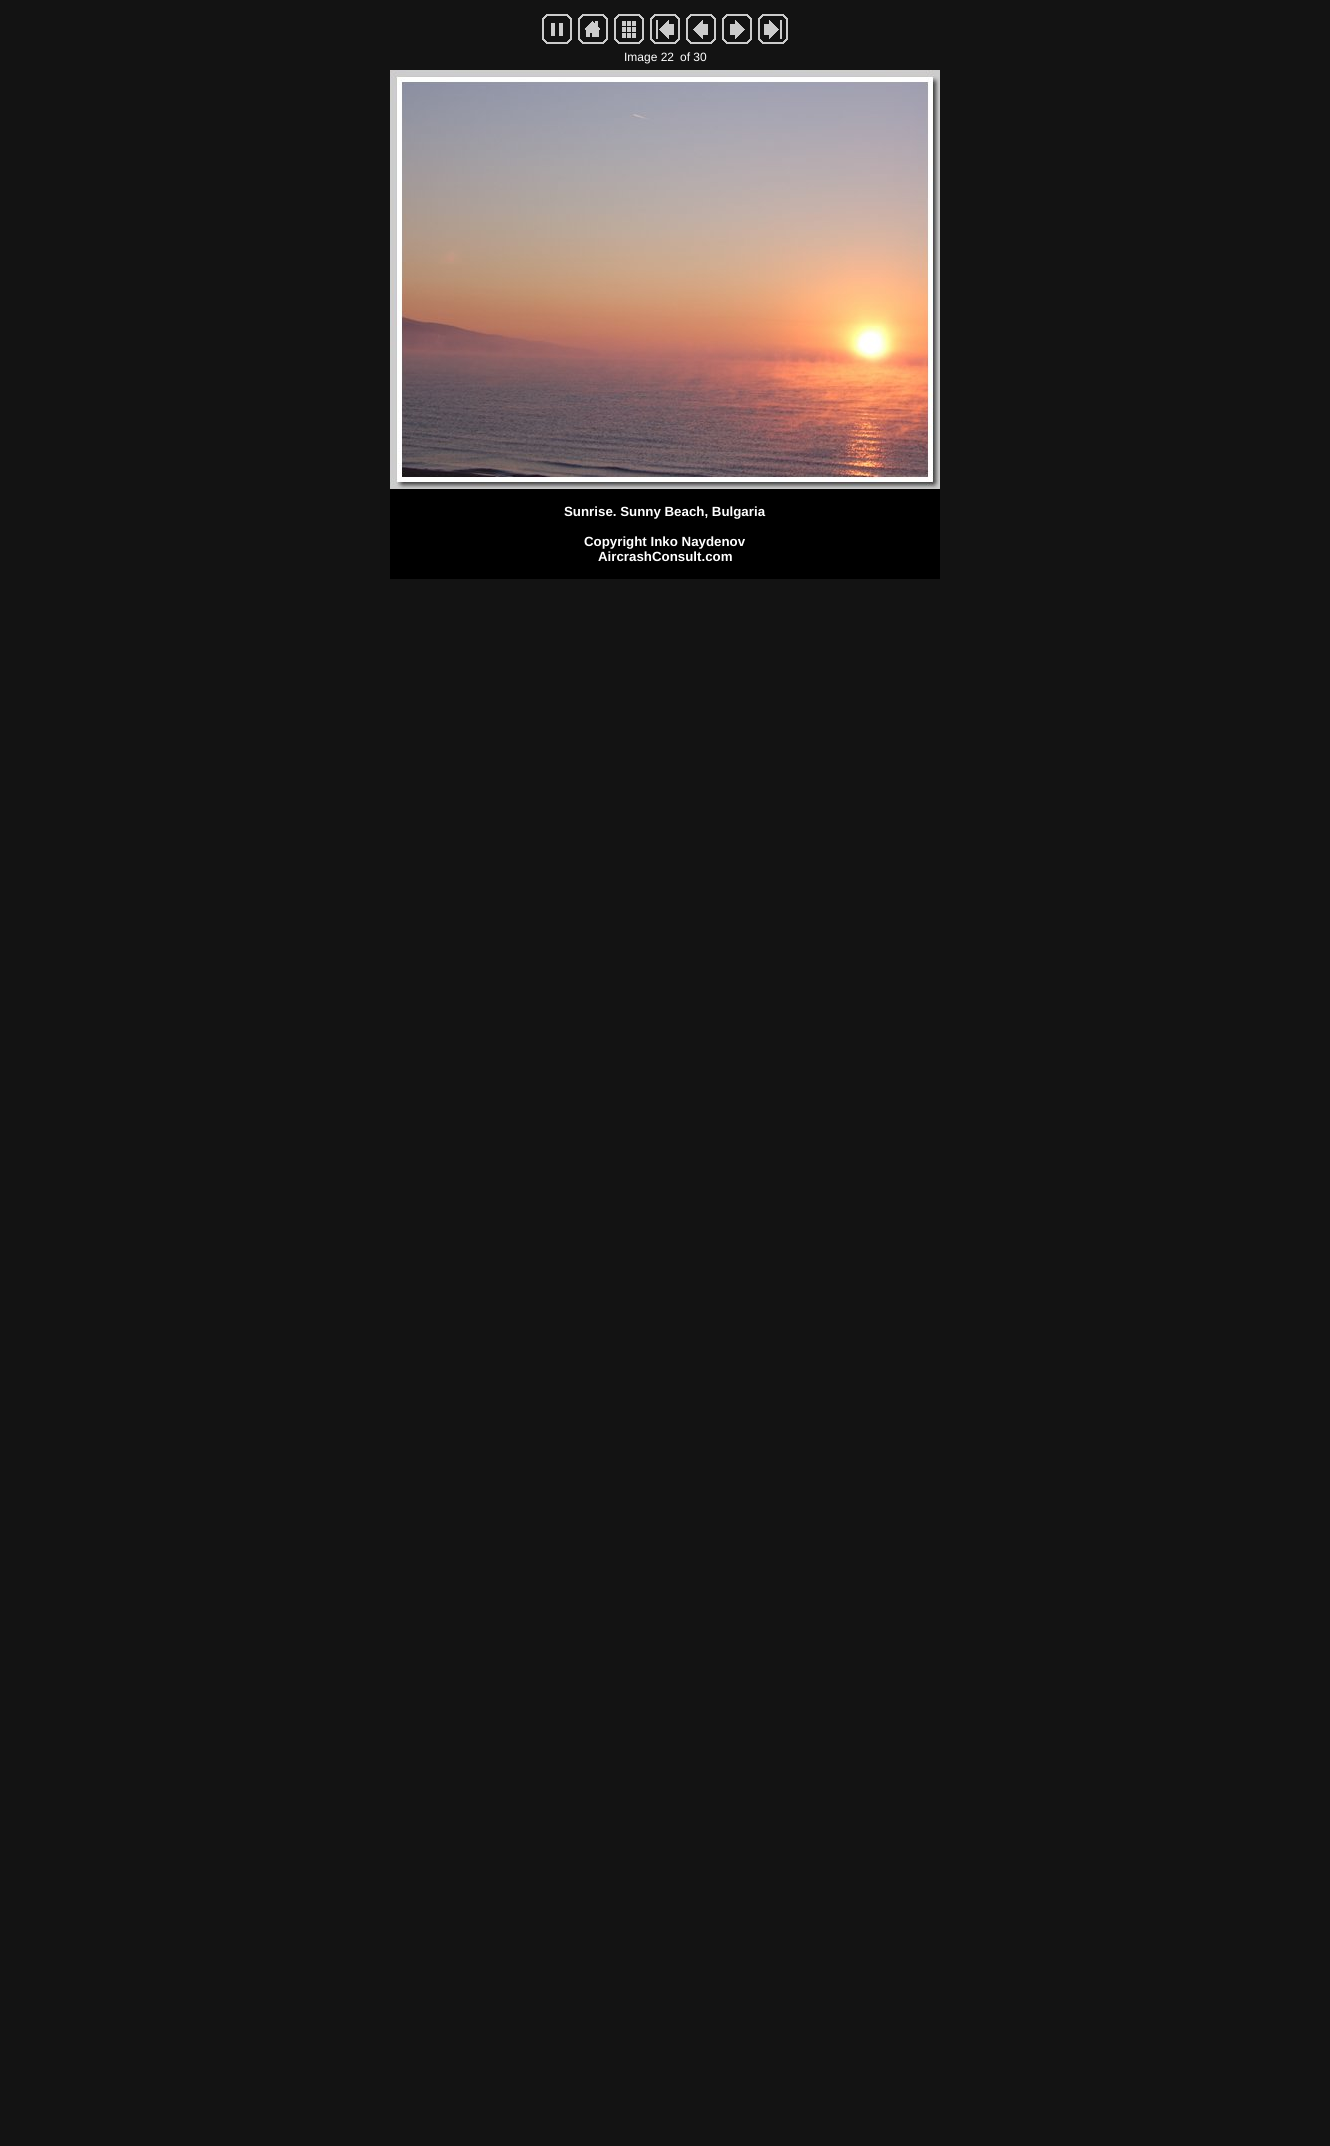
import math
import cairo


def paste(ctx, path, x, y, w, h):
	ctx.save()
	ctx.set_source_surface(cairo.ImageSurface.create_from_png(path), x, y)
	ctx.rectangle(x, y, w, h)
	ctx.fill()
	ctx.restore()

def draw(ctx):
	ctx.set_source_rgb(0.078, 0.078, 0.078)
	ctx.paint()
	paste(ctx, 'media/1.png', 542, 14, 30, 30)
	paste(ctx, 'media/2.png', 578, 14, 30, 30)
	paste(ctx, 'media/3.png', 614, 14, 30, 30)
	paste(ctx, 'media/4.png', 650, 14, 30, 30)
	paste(ctx, 'media/5.png', 686, 14, 30, 30)
	paste(ctx, 'media/6.png', 722, 14, 30, 30)
	paste(ctx, 'media/7.png', 758, 14, 30, 30)
	ctx.select_font_face('Liberation Sans')
	ctx.set_font_size(12)
	ctx.set_source_rgb(1, 1, 1)
	ctx.move_to(624, 61)
	ctx.show_text('Image 22')
	ctx.move_to(680, 61)
	ctx.show_text('of 30')
	paste(ctx, 'media/8.png', 390, 70, 550, 419)
	ctx.set_source_rgb(0, 0, 0)
	ctx.rectangle(390, 489, 550, 90)
	ctx.fill()
	ctx.select_font_face('Liberation Sans', cairo.FONT_SLANT_NORMAL, cairo.FONT_WEIGHT_BOLD)
	ctx.set_font_size(13.3)
	ctx.set_source_rgb(1, 1, 1)
	for x, y, s in [
		(564, 516, 'Sunrise. Sunny Beach, Bulgaria'),
		(584, 546, 'Copyright Inko Naydenov'),
		(598, 561, 'AircrashConsult.com'),
	]:
		ctx.move_to(x, y)
		ctx.show_text(s)


surface = cairo.ImageSurface(cairo.FORMAT_RGB24, 1330, 2146)
ctx = cairo.Context(surface)
options = cairo.FontOptions()
options.set_hint_metrics(cairo.HINT_METRICS_OFF)
options.set_hint_style(cairo.HINT_STYLE_NONE)
ctx.set_font_options(options)
ctx.set_miter_limit(4)
draw(ctx)
surface.write_to_png('image.png')
